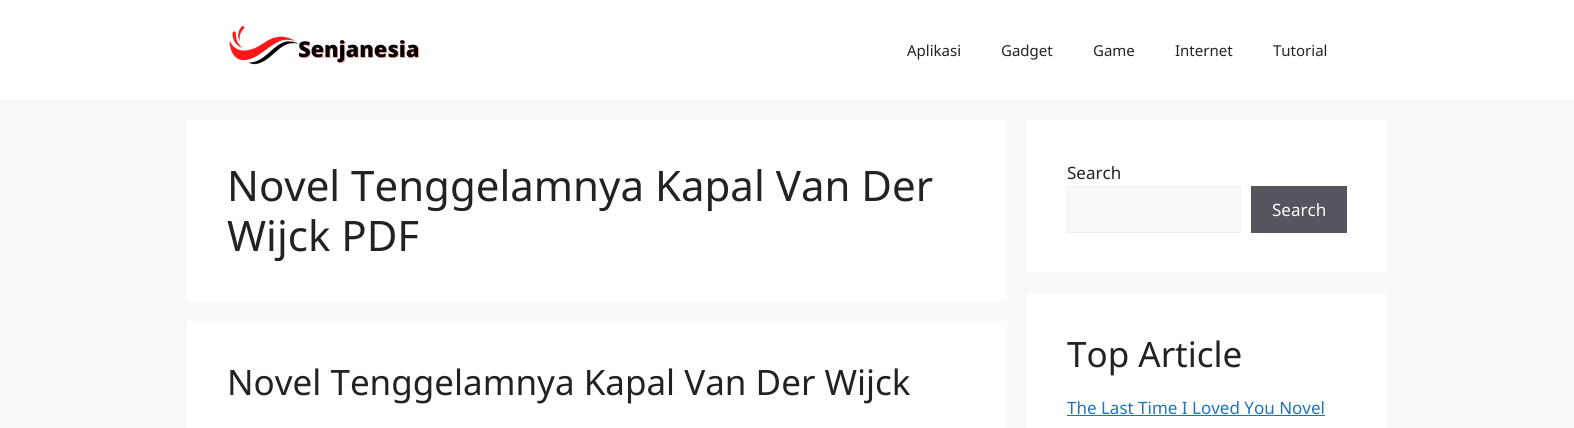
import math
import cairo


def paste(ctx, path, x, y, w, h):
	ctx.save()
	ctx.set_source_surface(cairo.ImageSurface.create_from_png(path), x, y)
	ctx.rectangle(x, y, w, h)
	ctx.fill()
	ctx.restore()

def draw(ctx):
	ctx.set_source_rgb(0.969, 0.973, 0.976)
	ctx.paint()
	ctx.set_source_rgb(1, 1, 1)
	ctx.rectangle(0, 0, 1574, 100)
	ctx.fill()
	paste(ctx, 'media/1.png', 229, 26, 191, 39)
	ctx.select_font_face('Noto Sans')
	ctx.set_font_size(15)
	ctx.set_source_rgb(0.133, 0.133, 0.133)
	for x, y, s in [
		(907, 56, 'Aplikasi'),
		(1001, 56, 'Gadget'),
		(1093, 56, 'Game'),
		(1175, 56, 'Internet'),
		(1273, 56, 'Tutorial'),
	]:
		ctx.move_to(x, y)
		ctx.show_text(s)
	ctx.set_source_rgb(1, 1, 1)
	ctx.rectangle(187, 120, 820, 181)
	ctx.fill()
	ctx.set_font_size(42)
	ctx.set_source_rgb(0.133, 0.133, 0.133)
	ctx.move_to(227, 201)
	ctx.show_text('Novel Tenggelamnya Kapal Van Der')
	ctx.move_to(227, 251)
	ctx.show_text('Wijck PDF')
	ctx.set_source_rgb(1, 1, 1)
	ctx.rectangle(187, 321, 820, 107)
	ctx.fill()
	ctx.set_font_size(35)
	ctx.set_source_rgb(0.133, 0.133, 0.133)
	ctx.move_to(227, 395)
	ctx.show_text('Novel Tenggelamnya Kapal Van Der Wijck')
	ctx.set_source_rgb(1, 1, 1)
	ctx.rectangle(1027, 120, 360, 153)
	ctx.fill()
	ctx.set_font_size(17)
	ctx.set_source_rgb(0.133, 0.133, 0.133)
	ctx.move_to(1067, 179)
	ctx.show_text('Search')
	ctx.set_source_rgb(0.969, 0.973, 0.976)
	ctx.rectangle(1067.5, 186.5, 173, 46)
	ctx.fill_preserve()
	ctx.set_source_rgb(0.941, 0.941, 0.941)
	ctx.set_line_width(1)
	ctx.stroke()
	ctx.set_source_rgb(0.333, 0.333, 0.369)
	ctx.rectangle(1251, 186, 96, 47)
	ctx.fill()
	ctx.set_source_rgb(1, 1, 1)
	ctx.move_to(1272, 216)
	ctx.show_text('Search')
	ctx.rectangle(1027, 293, 360, 135)
	ctx.fill()
	ctx.set_font_size(35)
	ctx.set_source_rgb(0.133, 0.133, 0.133)
	ctx.move_to(1067, 367)
	ctx.show_text('Top Article')
	ctx.set_font_size(17)
	ctx.set_source_rgb(0.118, 0.451, 0.745)
	ctx.move_to(1067, 414)
	ctx.show_text('The Last Time I Loved You Novel')
	ctx.rectangle(1067, 415, 258, 1)
	ctx.fill()


surface = cairo.ImageSurface(cairo.FORMAT_RGB24, 1574, 428)
ctx = cairo.Context(surface)
options = cairo.FontOptions()
options.set_hint_metrics(cairo.HINT_METRICS_OFF)
options.set_hint_style(cairo.HINT_STYLE_NONE)
ctx.set_font_options(options)
ctx.set_miter_limit(4)
draw(ctx)
surface.write_to_png('image.png')
